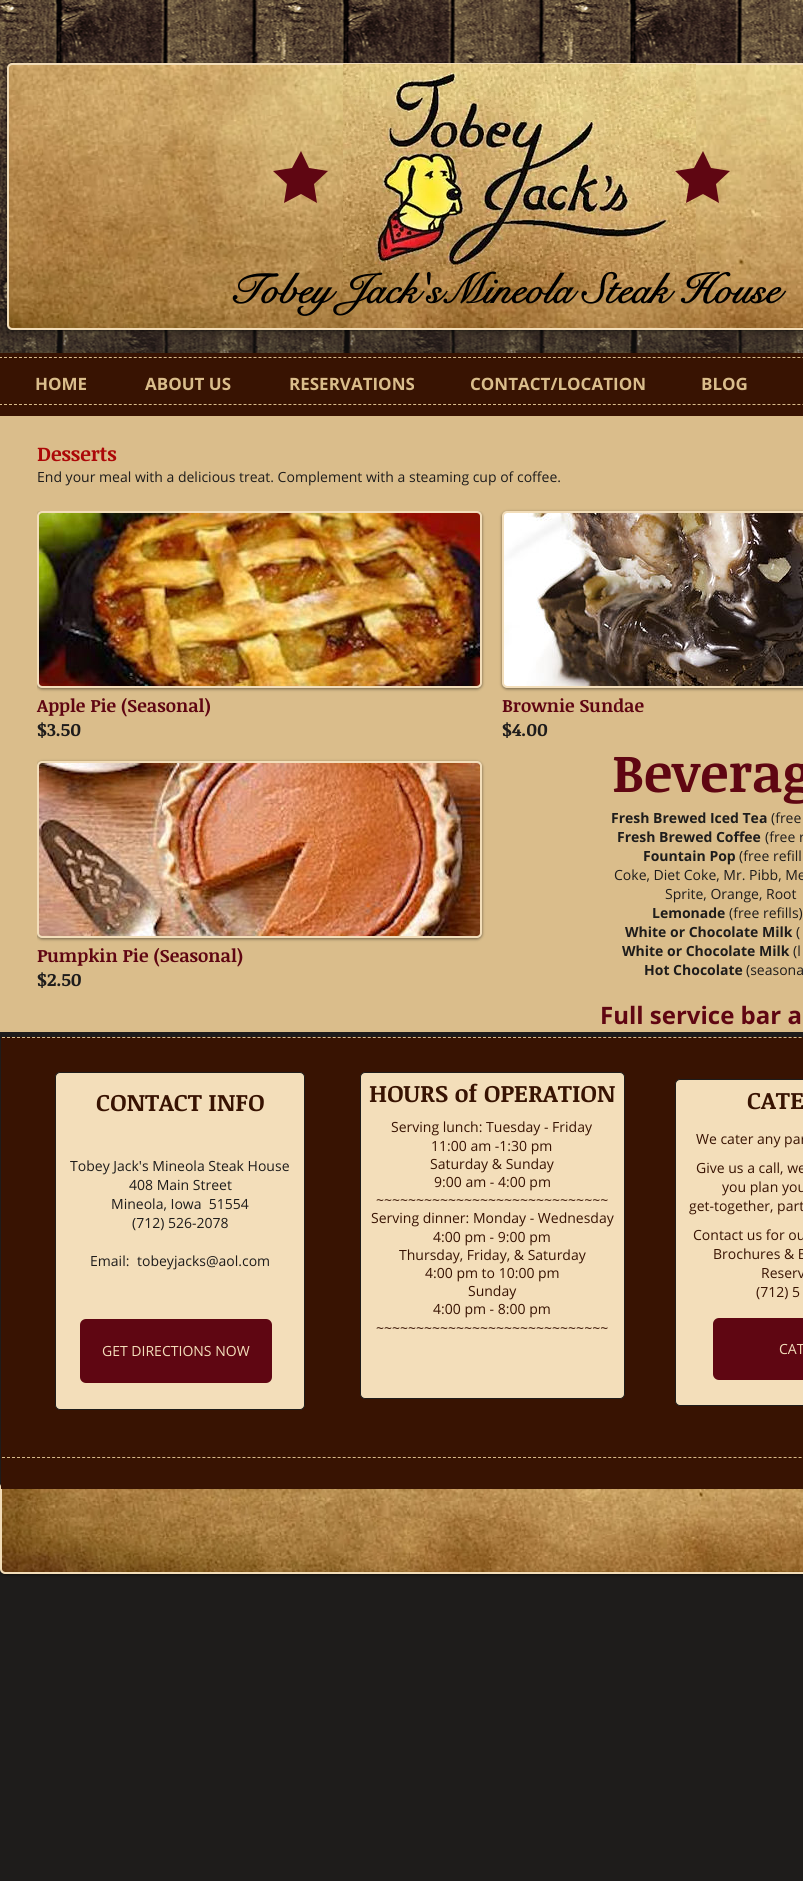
import math
import cairo


def round_path(ctx, x, y, w, h, r):
	ctx.new_sub_path()
	for i, (u, v) in enumerate([(x + w - r, y + h - r), (x + r, y + h - r), (x + r, y + r), (x + w - r, y + r)]):
		ctx.arc(u, v, r, i * math.pi / 2, (i + 1) * math.pi / 2)
	ctx.close_path()

def blur_box(ctx, x, y, w, h, r, blur, alpha):
	ctx.push_group_with_content(cairo.CONTENT_ALPHA)
	ctx.set_operator(cairo.OPERATOR_SOURCE)
	for i in range(15, -16, -2):
		e = blur * i / 6
		if min(w, h) + 2 * e > 0:
			ctx.set_source_rgba(0, 0, 0, alpha * math.erfc((i - 1) / 8.5) / 2)
			round_path(ctx, x - e, y - e, w + 2 * e, h + 2 * e, max(0, min(r + e + blur * .6, min(w, h) / 2 + e)))
			ctx.fill()
	ctx.mask(ctx.pop_group())

def paste(ctx, path, x, y, w, h):
	ctx.save()
	ctx.set_source_surface(cairo.ImageSurface.create_from_png(path), x, y)
	ctx.rectangle(x, y, w, h)
	ctx.fill()
	ctx.restore()

def draw(ctx):
	ctx.set_source_rgb(0.118, 0.11, 0.106)
	ctx.paint()
	paste(ctx, 'media/1.png', 0, 0, 803, 353)
	ctx.set_source_rgb(0, 0, 0)
	blur_box(ctx, 7, 64, 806, 267, 5, 1.5, 0.5)
	ctx.set_source_rgb(0.953, 0.871, 0.729)
	round_path(ctx, 8, 64, 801, 265, 4)
	ctx.fill_preserve()
	ctx.stroke()
	paste(ctx, 'media/2.png', 9, 65, 794, 263)
	ctx.set_source_rgb(0.373, 0.027, 0.071)
	ctx.new_path()
	ctx.move_to(301, 151)
	ctx.line_to(309, 168)
	ctx.line_to(328, 171)
	ctx.line_to(314, 184)
	ctx.line_to(317, 203)
	ctx.line_to(301, 194)
	ctx.line_to(284, 203)
	ctx.line_to(287, 184)
	ctx.line_to(273, 171)
	ctx.line_to(292, 168)
	ctx.close_path()
	ctx.fill()
	paste(ctx, 'media/3.png', 343, 64, 353, 229)
	ctx.new_path()
	ctx.move_to(703, 151)
	ctx.line_to(711, 168)
	ctx.line_to(730, 171)
	ctx.line_to(716, 184)
	ctx.line_to(719, 203)
	ctx.line_to(703, 194)
	ctx.line_to(686, 203)
	ctx.line_to(689, 184)
	ctx.line_to(675, 171)
	ctx.line_to(694, 168)
	ctx.close_path()
	ctx.fill()
	ctx.select_font_face('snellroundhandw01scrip', cairo.FONT_SLANT_NORMAL, cairo.FONT_WEIGHT_BOLD)
	ctx.set_font_size(42)
	ctx.set_source_rgb(0, 0, 0)
	ctx.move_to(228, 303)
	ctx.show_text('Tobey Jack\'sMineola Steak House')
	ctx.set_source_rgb(0.22, 0.078, 0.008)
	ctx.rectangle(0, 353, 803, 63)
	ctx.fill()
	ctx.new_path()
	ctx.move_to(-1, 357.5)
	ctx.line_to(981, 357.5)
	ctx.set_source_rgb(0.855, 0.741, 0.545)
	ctx.set_line_width(1)
	ctx.set_dash([3, 1.99])
	ctx.stroke()
	ctx.select_font_face('Open Sans', cairo.FONT_SLANT_NORMAL, cairo.FONT_WEIGHT_BOLD)
	ctx.set_font_size(17)
	for x, y, s in [
		(35, 390, 'HOME'),
		(145, 390, 'ABOUT US'),
		(289, 390, 'RESERVATIONS'),
		(470, 390, 'CONTACT/LOCATION'),
		(701, 390, 'BLOG'),
	]:
		ctx.move_to(x, y)
		ctx.show_text(s)
	ctx.new_path()
	ctx.move_to(-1, 404.5)
	ctx.line_to(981, 404.5)
	ctx.stroke()
	ctx.rectangle(0, 416, 803, 616)
	ctx.fill()
	ctx.select_font_face('Noticia Text', cairo.FONT_SLANT_NORMAL, cairo.FONT_WEIGHT_BOLD)
	ctx.set_font_size(20)
	ctx.set_source_rgb(0.675, 0.035, 0.035)
	ctx.move_to(37, 461)
	ctx.show_text('Desserts')
	ctx.select_font_face('Open Sans')
	ctx.set_font_size(14)
	ctx.set_source_rgb(0.118, 0.11, 0.106)
	ctx.move_to(37, 482)
	ctx.show_text('End your meal with a delicious treat. Complement with a steaming cup of coffee.')
	ctx.save()
	ctx.rectangle(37, 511, 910, 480)
	ctx.clip()
	ctx.set_source_rgb(0, 0, 0)
	blur_box(ctx, 37, 512, 445, 177, 5, 1.5, 0.5)
	ctx.restore()
	ctx.set_source_rgb(0.953, 0.871, 0.729)
	round_path(ctx, 38, 512, 443, 175, 4)
	ctx.fill_preserve()
	ctx.set_line_width(2)
	ctx.set_dash([])
	ctx.stroke()
	paste(ctx, 'media/4.png', 39, 513, 441, 173)
	ctx.select_font_face('Noticia Text', cairo.FONT_SLANT_NORMAL, cairo.FONT_WEIGHT_BOLD)
	ctx.set_font_size(18)
	ctx.set_source_rgb(0.373, 0.027, 0.071)
	ctx.move_to(37, 712)
	ctx.show_text('Apple Pie (Seasonal)')
	ctx.set_source_rgb(0.118, 0.11, 0.106)
	ctx.move_to(37, 736)
	ctx.show_text('$3.50')
	ctx.set_source_rgb(0, 0, 0)
	blur_box(ctx, 502, 512, 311, 177, 5, 1.5, 0.5)
	ctx.set_source_rgb(0.953, 0.871, 0.729)
	round_path(ctx, 503, 512, 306, 175, 4)
	ctx.fill_preserve()
	ctx.stroke()
	paste(ctx, 'media/5.png', 504, 513, 299, 173)
	ctx.set_source_rgb(0.373, 0.027, 0.071)
	ctx.move_to(502, 712)
	ctx.show_text('Brownie Sundae')
	ctx.set_source_rgb(0.118, 0.11, 0.106)
	ctx.move_to(502, 736)
	ctx.show_text('$4.00')
	ctx.save()
	ctx.rectangle(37, 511, 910, 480)
	ctx.clip()
	ctx.set_source_rgb(0, 0, 0)
	blur_box(ctx, 37, 762, 445, 177, 5, 1.5, 0.5)
	ctx.restore()
	ctx.set_source_rgb(0.953, 0.871, 0.729)
	round_path(ctx, 38, 762, 443, 175, 4)
	ctx.fill_preserve()
	ctx.stroke()
	paste(ctx, 'media/6.png', 39, 763, 441, 173)
	ctx.set_source_rgb(0.373, 0.027, 0.071)
	ctx.move_to(37, 962)
	ctx.show_text('Pumpkin Pie (Seasonal)')
	ctx.set_source_rgb(0.118, 0.11, 0.106)
	ctx.move_to(37, 986)
	ctx.show_text('$2.50')
	ctx.set_font_size(53)
	ctx.set_source_rgb(0.373, 0.027, 0.071)
	ctx.move_to(612, 792)
	ctx.show_text('Beverag')
	ctx.select_font_face('Open Sans', cairo.FONT_SLANT_NORMAL, cairo.FONT_WEIGHT_BOLD)
	ctx.set_font_size(14)
	ctx.set_source_rgb(0.118, 0.11, 0.106)
	ctx.move_to(611, 823)
	ctx.show_text('Fresh Brewed Iced Tea')
	ctx.select_font_face('Open Sans')
	ctx.move_to(771, 823)
	ctx.show_text('(free')
	ctx.select_font_face('Open Sans', cairo.FONT_SLANT_NORMAL, cairo.FONT_WEIGHT_BOLD)
	ctx.move_to(617, 842)
	ctx.show_text('Fresh Brewed Coffee')
	ctx.select_font_face('Open Sans')
	ctx.move_to(765, 842)
	ctx.show_text('(free r')
	ctx.select_font_face('Open Sans', cairo.FONT_SLANT_NORMAL, cairo.FONT_WEIGHT_BOLD)
	ctx.move_to(643, 861)
	ctx.show_text('Fountain Pop')
	ctx.select_font_face('Open Sans')
	for x, y, s in [
		(739, 861, '(free refill'),
		(614, 880, 'Coke, Diet Coke, Mr. Pibb, Me'),
		(665, 899, 'Sprite, Orange, Root'),
	]:
		ctx.move_to(x, y)
		ctx.show_text(s)
	ctx.select_font_face('Open Sans', cairo.FONT_SLANT_NORMAL, cairo.FONT_WEIGHT_BOLD)
	ctx.move_to(652, 918)
	ctx.show_text('Lemonade')
	ctx.select_font_face('Open Sans')
	ctx.move_to(729, 918)
	ctx.show_text('(free refills)')
	ctx.select_font_face('Open Sans', cairo.FONT_SLANT_NORMAL, cairo.FONT_WEIGHT_BOLD)
	ctx.move_to(625, 937)
	ctx.show_text('White or Chocolate Milk')
	ctx.select_font_face('Open Sans')
	ctx.move_to(796, 937)
	ctx.show_text('(')
	ctx.select_font_face('Open Sans', cairo.FONT_SLANT_NORMAL, cairo.FONT_WEIGHT_BOLD)
	ctx.move_to(622, 956)
	ctx.show_text('White or Chocolate Milk')
	ctx.select_font_face('Open Sans')
	ctx.move_to(793, 956)
	ctx.show_text('(l')
	ctx.select_font_face('Open Sans', cairo.FONT_SLANT_NORMAL, cairo.FONT_WEIGHT_BOLD)
	ctx.move_to(644, 975)
	ctx.show_text('Hot Chocolate')
	ctx.select_font_face('Open Sans')
	ctx.move_to(746, 975)
	ctx.show_text('(seasona')
	ctx.select_font_face('Open Sans', cairo.FONT_SLANT_NORMAL, cairo.FONT_WEIGHT_BOLD)
	ctx.set_font_size(24)
	ctx.set_source_rgb(0.373, 0.027, 0.071)
	ctx.move_to(600, 1024)
	ctx.show_text('Full service bar a')
	ctx.set_source_rgb(0, 0, 0)
	blur_box(ctx, 0, 1483, 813, 92, 5, 1.5, 0.5)
	ctx.set_source_rgb(0.953, 0.871, 0.729)
	round_path(ctx, 1, 1483, 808, 90, 4)
	ctx.fill_preserve()
	ctx.stroke()
	ctx.set_source_rgb(0.22, 0.078, 0.008)
	ctx.rectangle(1, 1037, 802, 452)
	ctx.fill()
	ctx.new_path()
	ctx.move_to(2, 1037.5)
	ctx.line_to(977, 1037.5)
	ctx.set_source_rgb(0.855, 0.741, 0.545)
	ctx.set_line_width(1)
	ctx.set_dash([3, 2.01])
	ctx.stroke()
	ctx.set_source_rgb(0.953, 0.871, 0.729)
	round_path(ctx, 55.5, 1072.5, 249, 337, 4.5)
	ctx.fill_preserve()
	ctx.set_source_rgb(0.118, 0.11, 0.106)
	ctx.set_dash([])
	ctx.stroke()
	ctx.select_font_face('Noticia Text', cairo.FONT_SLANT_NORMAL, cairo.FONT_WEIGHT_BOLD)
	ctx.set_source_rgb(0.22, 0.078, 0.008)
	ctx.move_to(96, 1111)
	ctx.show_text('CONTACT INFO')
	ctx.select_font_face('Open Sans')
	ctx.set_font_size(14)
	ctx.set_source_rgb(0.118, 0.11, 0.106)
	for x, y, s in [
		(70, 1171, 'Tobey Jack\'s Mineola Steak House'),
		(129, 1190, '408 Main Street'),
		(111, 1209, 'Mineola, Iowa  51554'),
		(132, 1228, '(712) 526-2078'),
		(90, 1266, 'Email:'),
		(137, 1266, 'tobeyjacks@aol.com'),
	]:
		ctx.move_to(x, y)
		ctx.show_text(s)
	ctx.set_source_rgb(0.373, 0.027, 0.071)
	round_path(ctx, 80, 1319, 192, 64, 6)
	ctx.fill()
	ctx.set_source_rgb(0.953, 0.871, 0.729)
	ctx.move_to(102, 1356)
	ctx.show_text('GET DIRECTIONS NOW')
	round_path(ctx, 360.5, 1072.5, 264, 326, 4.5)
	ctx.fill_preserve()
	ctx.set_source_rgb(0.118, 0.11, 0.106)
	ctx.stroke()
	ctx.select_font_face('Noticia Text', cairo.FONT_SLANT_NORMAL, cairo.FONT_WEIGHT_BOLD)
	ctx.set_font_size(24)
	ctx.set_source_rgb(0.22, 0.078, 0.008)
	ctx.move_to(369, 1102)
	ctx.show_text('HOURS of OPERATION')
	ctx.select_font_face('Open Sans')
	ctx.set_font_size(14)
	for x, y, s in [
		(391, 1132, 'Serving lunch: Tuesday - Friday'),
		(431, 1151, '11:00 am -1:30 pm'),
		(430, 1169, 'Saturday & Sunday'),
		(434, 1187, '9:00 am - 4:00 pm'),
		(376, 1205, '~~~~~~~~~~~~~~~~~~~~~~~~~~~~~'),
		(371, 1223, 'Serving dinner: Monday - Wednesday'),
		(433, 1242, '4:00 pm - 9:00 pm'),
		(399, 1260, 'Thursday, Friday, & Saturday'),
		(425, 1278, '4:00 pm to 10:00 pm'),
		(468, 1296, 'Sunday'),
		(433, 1314, '4:00 pm - 8:00 pm'),
		(376, 1333, '~~~~~~~~~~~~~~~~~~~~~~~~~~~~~'),
	]:
		ctx.move_to(x, y)
		ctx.show_text(s)
	ctx.set_source_rgb(0.953, 0.871, 0.729)
	round_path(ctx, 675.5, 1079.5, 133, 326, 4.5)
	ctx.fill_preserve()
	ctx.set_source_rgb(0.118, 0.11, 0.106)
	ctx.stroke()
	ctx.select_font_face('Noticia Text', cairo.FONT_SLANT_NORMAL, cairo.FONT_WEIGHT_BOLD)
	ctx.set_font_size(24)
	ctx.set_source_rgb(0.22, 0.078, 0.008)
	ctx.move_to(747, 1109)
	ctx.show_text('CATE')
	ctx.select_font_face('Open Sans')
	ctx.set_font_size(14)
	for x, y, s in [
		(696, 1144, 'We cater any par'),
		(696, 1173, 'Give us a call, we'),
		(722, 1192, 'you plan you'),
		(689, 1211, 'get-together, part'),
		(693, 1240, 'Contact us for ou'),
		(713, 1259, 'Brochures & B'),
		(761, 1278, 'Reserv'),
		(756, 1297, '(712) 5'),
	]:
		ctx.move_to(x, y)
		ctx.show_text(s)
	ctx.set_source_rgb(0.373, 0.027, 0.071)
	round_path(ctx, 713, 1318, 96, 62, 6)
	ctx.fill()
	ctx.set_source_rgb(0.953, 0.871, 0.729)
	ctx.move_to(779, 1354)
	ctx.show_text('CAT')
	ctx.new_path()
	ctx.move_to(2, 1457.5)
	ctx.line_to(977, 1457.5)
	ctx.set_source_rgb(0.855, 0.741, 0.545)
	ctx.set_dash([3, 2.01])
	ctx.stroke()
	paste(ctx, 'media/7.png', 2, 1489, 801, 83)


surface = cairo.ImageSurface(cairo.FORMAT_RGB24, 803, 1881)
ctx = cairo.Context(surface)
options = cairo.FontOptions()
options.set_hint_metrics(cairo.HINT_METRICS_OFF)
options.set_hint_style(cairo.HINT_STYLE_NONE)
ctx.set_font_options(options)
ctx.set_miter_limit(4)
draw(ctx)
surface.write_to_png('image.png')
